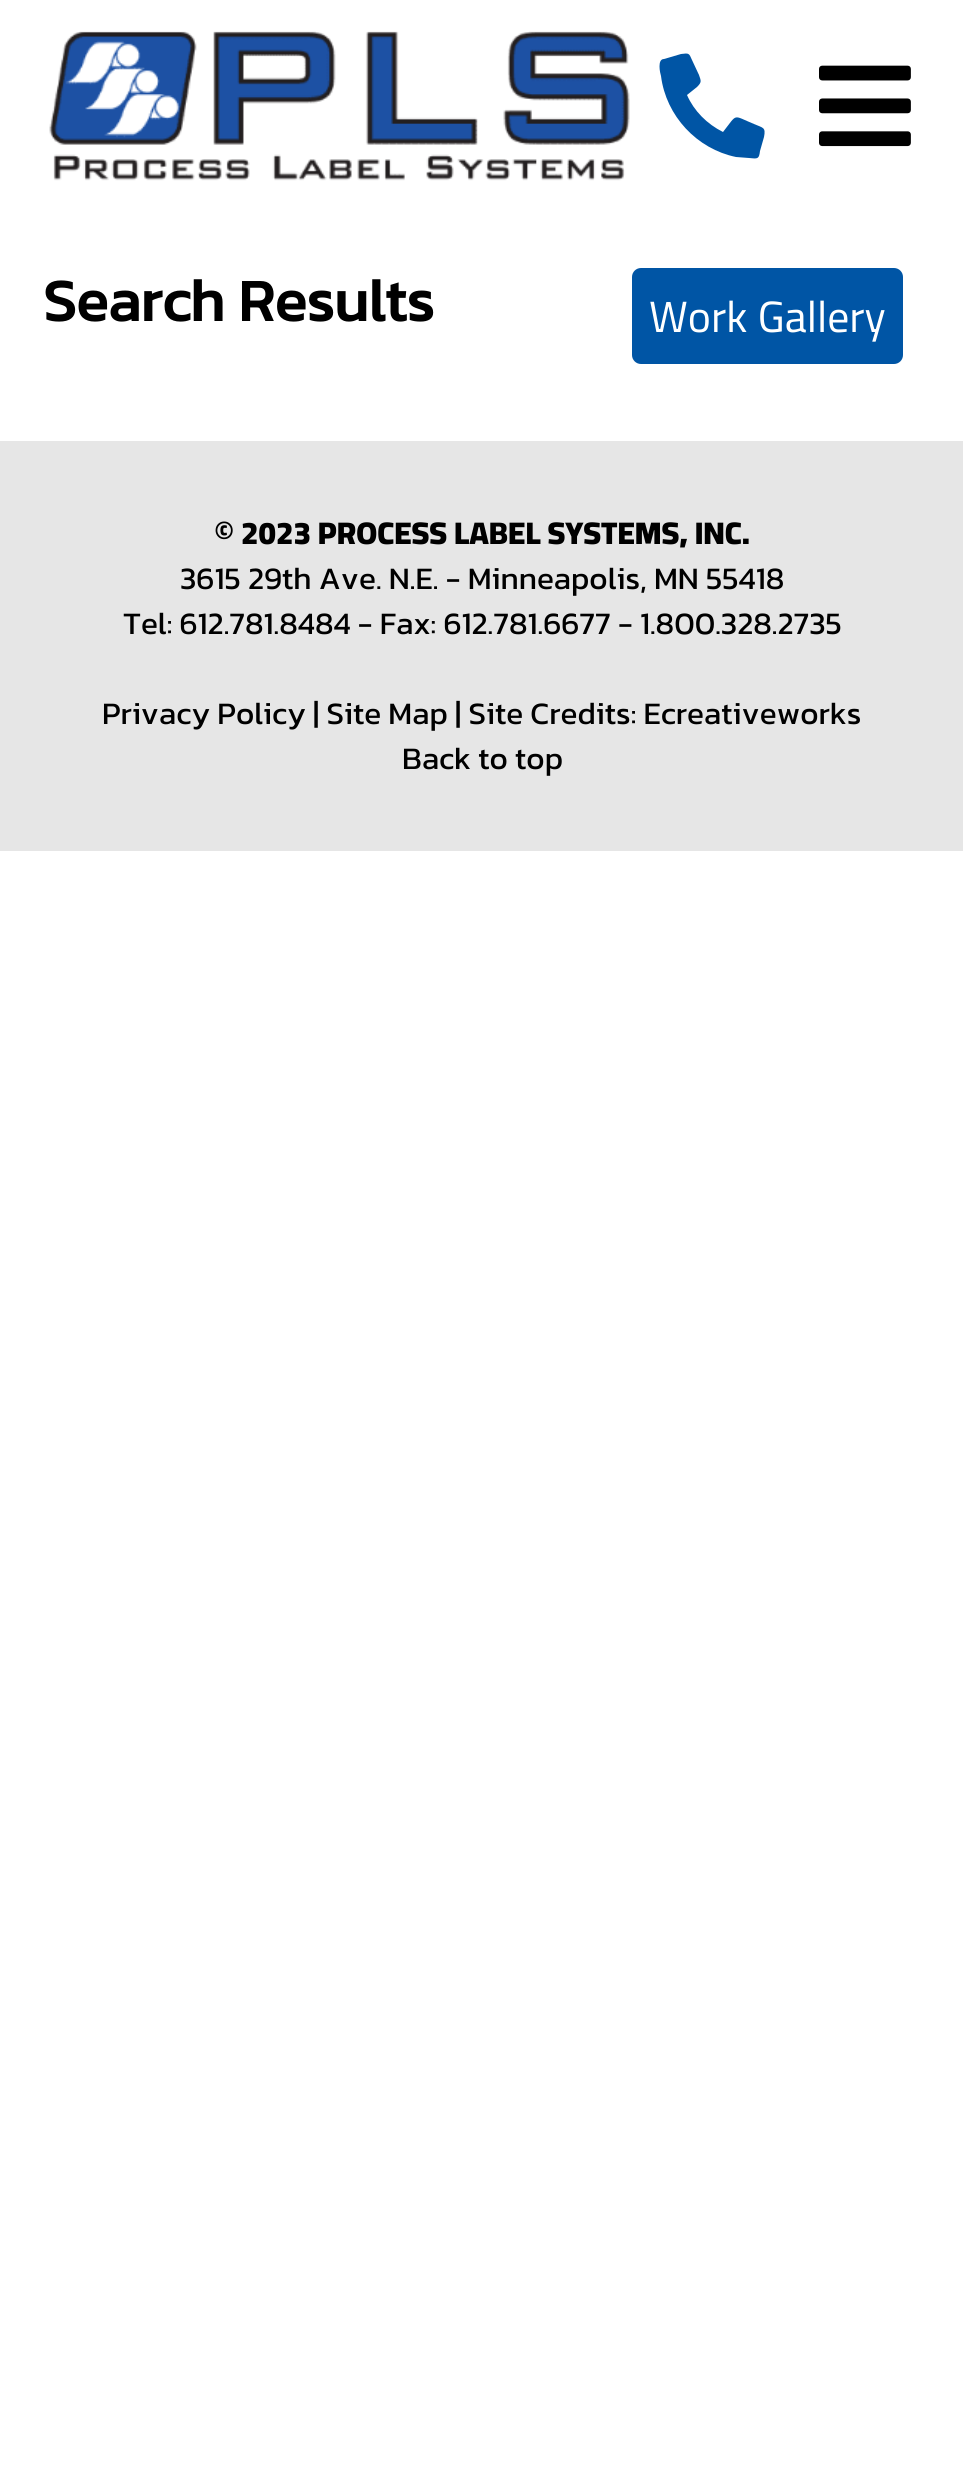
import math
import cairo


def write_spaced(ctx, x, y, s, letter, word):
	ctx.move_to(x, y)
	for ch in s:
		ctx.show_text(ch)
		ctx.rel_move_to(letter + word * (ch == ' '), 0)

def round_path(ctx, x, y, w, h, r):
	ctx.new_sub_path()
	for i, (u, v) in enumerate([(x + w - r, y + h - r), (x + r, y + h - r), (x + r, y + r), (x + w - r, y + r)]):
		ctx.arc(u, v, r, i * math.pi / 2, (i + 1) * math.pi / 2)
	ctx.close_path()

def paste(ctx, path, x, y, w, h):
	ctx.save()
	ctx.set_source_surface(cairo.ImageSurface.create_from_png(path), x, y)
	ctx.rectangle(x, y, w, h)
	ctx.fill()
	ctx.restore()

def draw(ctx):
	ctx.set_source_rgb(1, 1, 1)
	ctx.paint()
	paste(ctx, 'media/1.png', 49, 31, 581, 150)
	ctx.set_source_rgb(0, 0.333, 0.647)
	ctx.new_path()
	ctx.move_to(664, 59)
	ctx.line_to(681, 54)
	ctx.curve_to(689, 53, 689, 53, 692, 60)
	ctx.line_to(699, 75)
	ctx.curve_to(701, 81, 702, 82, 697, 87)
	ctx.line_to(687, 95)
	ctx.curve_to(694, 111, 707, 124, 723, 132)
	ctx.curve_to(738, 113, 732, 115, 754, 124)
	ctx.curve_to(763, 128, 766, 127, 764, 137)
	ctx.line_to(760, 151)
	ctx.curve_to(759, 159, 758, 159, 749, 158)
	ctx.line_to(736, 157)
	ctx.curve_to(697, 149, 666, 116, 661, 76)
	ctx.curve_to(660, 73, 657, 59, 664, 59)
	ctx.close_path()
	ctx.fill()
	paste(ctx, 'media/2.png', 819, 65, 92, 82)
	ctx.select_font_face('Kanit', cairo.FONT_SLANT_NORMAL, cairo.FONT_WEIGHT_BOLD)
	ctx.set_font_size(59.5)
	ctx.set_source_rgb(0, 0, 0)
	ctx.move_to(43, 321)
	ctx.show_text('Search Results')
	ctx.set_source_rgb(0, 0.333, 0.647)
	round_path(ctx, 632, 268, 271, 96, 9)
	ctx.fill()
	ctx.select_font_face('Cairo')
	ctx.set_font_size(43.75)
	ctx.set_source_rgb(1, 1, 1)
	write_spaced(ctx, 649, 332, 'Work Gallery', 0, 1)
	ctx.set_source_rgb(0.902, 0.902, 0.902)
	ctx.rectangle(0, 441, 963, 410)
	ctx.fill()
	ctx.select_font_face('Cairo Black')
	ctx.set_font_size(31.5)
	ctx.set_source_rgb(0, 0, 0)
	ctx.move_to(214, 544)
	ctx.show_text('© 2023 PROCESS LABEL SYSTEMS, INC.')
	ctx.select_font_face('Kanit')
	for x, y, s in [
		(180, 589, '3615 29th Ave. N.E. - Minneapolis, MN 55418'),
		(123, 634, 'Tel: 612.781.8484 - Fax: 612.781.6677 - 1.800.328.2735'),
		(102, 724, 'Privacy Policy | Site Map | Site Credits: Ecreativeworks'),
		(402, 769, 'Back to top'),
	]:
		ctx.move_to(x, y)
		ctx.show_text(s)


surface = cairo.ImageSurface(cairo.FORMAT_RGB24, 963, 2470)
ctx = cairo.Context(surface)
options = cairo.FontOptions()
options.set_hint_metrics(cairo.HINT_METRICS_OFF)
options.set_hint_style(cairo.HINT_STYLE_NONE)
ctx.set_font_options(options)
ctx.set_miter_limit(4)
draw(ctx)
surface.write_to_png('image.png')
